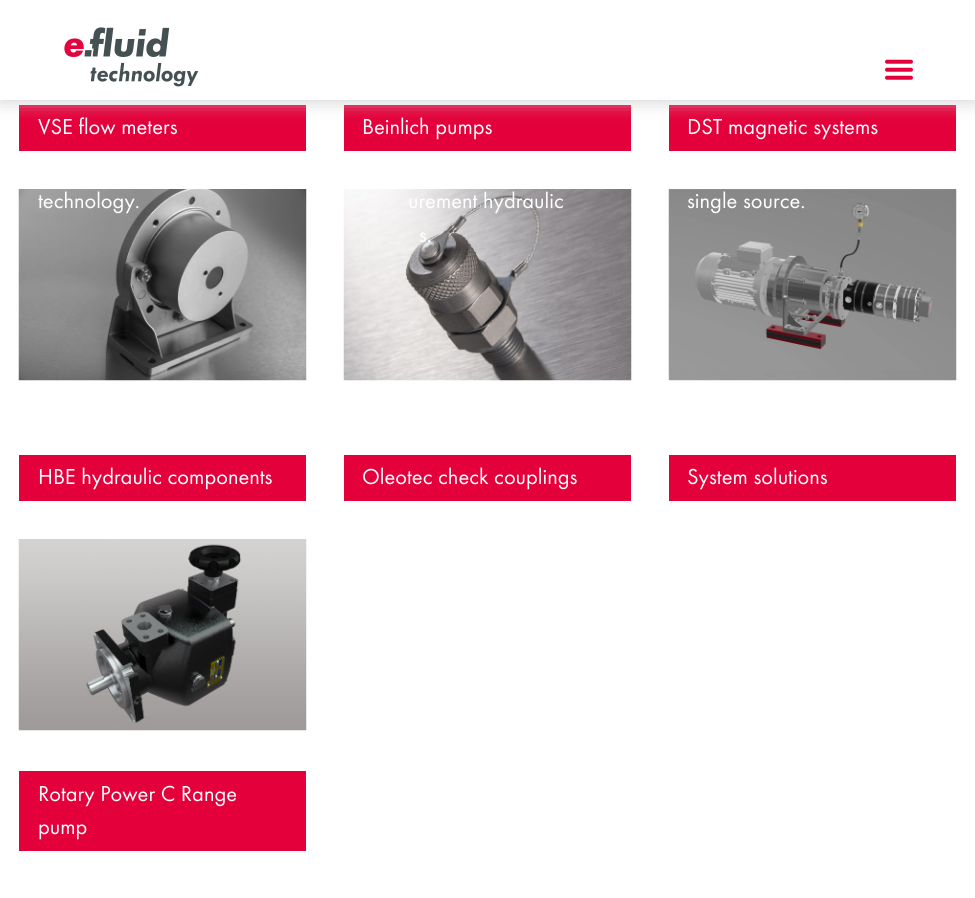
import math
import cairo


def round_path(ctx, x, y, w, h, r):
	ctx.new_sub_path()
	for i, (u, v) in enumerate([(x + w - r, y + h - r), (x + r, y + h - r), (x + r, y + r), (x + w - r, y + r)]):
		ctx.arc(u, v, r, i * math.pi / 2, (i + 1) * math.pi / 2)
	ctx.close_path()

def blur_box(ctx, x, y, w, h, r, blur, alpha):
	ctx.push_group_with_content(cairo.CONTENT_ALPHA)
	ctx.set_operator(cairo.OPERATOR_SOURCE)
	for i in range(15, -16, -2):
		e = blur * i / 6
		if min(w, h) + 2 * e > 0:
			ctx.set_source_rgba(0, 0, 0, alpha * math.erfc((i - 1) / 8.5) / 2)
			round_path(ctx, x - e, y - e, w + 2 * e, h + 2 * e, max(0, min(r + e + blur * .6, min(w, h) / 2 + e)))
			ctx.fill()
	ctx.mask(ctx.pop_group())

def paste(ctx, path, x, y, w, h):
	ctx.save()
	ctx.set_source_surface(cairo.ImageSurface.create_from_png(path), x, y)
	ctx.rectangle(x, y, w, h)
	ctx.fill()
	ctx.restore()

def draw(ctx):
	ctx.set_source_rgb(1, 1, 1)
	ctx.paint()
	ctx.set_source_rgb(0.894, 0, 0.227)
	ctx.rectangle(19, 105, 287, 46)
	ctx.rectangle(344, 105, 287, 46)
	ctx.rectangle(669, 105, 287, 46)
	ctx.fill()
	ctx.set_source_rgb(0.8, 0.8, 0.8)
	blur_box(ctx, 0, 0, 975, 100, 0, 9.5, 1)
	ctx.set_source_rgb(1, 1, 1)
	ctx.rectangle(0, 0, 975, 100)
	ctx.fill()
	paste(ctx, 'media/1.png', 64, 27, 135, 60)
	paste(ctx, 'media/2.png', 885, 59, 28, 21)
	ctx.select_font_face('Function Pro')
	ctx.set_font_size(22.5)
	for x, y, s in [
		(38, 134, 'VSE flow meters'),
		(362, 134, 'Beinlich pumps'),
		(687, 134, 'DST magnetic systems'),
	]:
		ctx.move_to(x, y)
		ctx.show_text(s)
	paste(ctx, 'media/3.png', 18, 189, 289, 192)
	ctx.move_to(38, 208)
	ctx.show_text('technology.')
	ctx.set_source_rgb(0.894, 0, 0.227)
	ctx.rectangle(19, 455, 287, 46)
	ctx.fill()
	ctx.set_source_rgb(1, 1, 1)
	ctx.move_to(38, 484)
	ctx.show_text('HBE hydraulic components')
	paste(ctx, 'media/4.png', 343, 189, 289, 192)
	ctx.move_to(408, 208)
	ctx.show_text('urement hydraulic')
	ctx.move_to(419, 242)
	ctx.show_text('s.')
	ctx.set_source_rgb(0.894, 0, 0.227)
	ctx.rectangle(344, 455, 287, 46)
	ctx.fill()
	ctx.set_source_rgb(1, 1, 1)
	ctx.move_to(362, 484)
	ctx.show_text('Oleotec check couplings')
	paste(ctx, 'media/5.png', 668, 189, 289, 192)
	ctx.move_to(687, 208)
	ctx.show_text('single source.')
	ctx.set_source_rgb(0.894, 0, 0.227)
	ctx.rectangle(669, 455, 287, 46)
	ctx.fill()
	ctx.set_source_rgb(1, 1, 1)
	ctx.move_to(687, 484)
	ctx.show_text('System solutions')
	paste(ctx, 'media/6.png', 18, 539, 289, 192)
	ctx.set_source_rgb(0.894, 0, 0.227)
	ctx.rectangle(19, 771, 287, 80)
	ctx.fill()
	ctx.set_source_rgb(1, 1, 1)
	ctx.move_to(38, 801)
	ctx.show_text('Rotary Power C Range')
	ctx.move_to(38, 834)
	ctx.show_text('pump')


surface = cairo.ImageSurface(cairo.FORMAT_RGB24, 975, 898)
ctx = cairo.Context(surface)
options = cairo.FontOptions()
options.set_hint_metrics(cairo.HINT_METRICS_OFF)
options.set_hint_style(cairo.HINT_STYLE_NONE)
ctx.set_font_options(options)
ctx.set_miter_limit(4)
draw(ctx)
surface.write_to_png('image.png')
